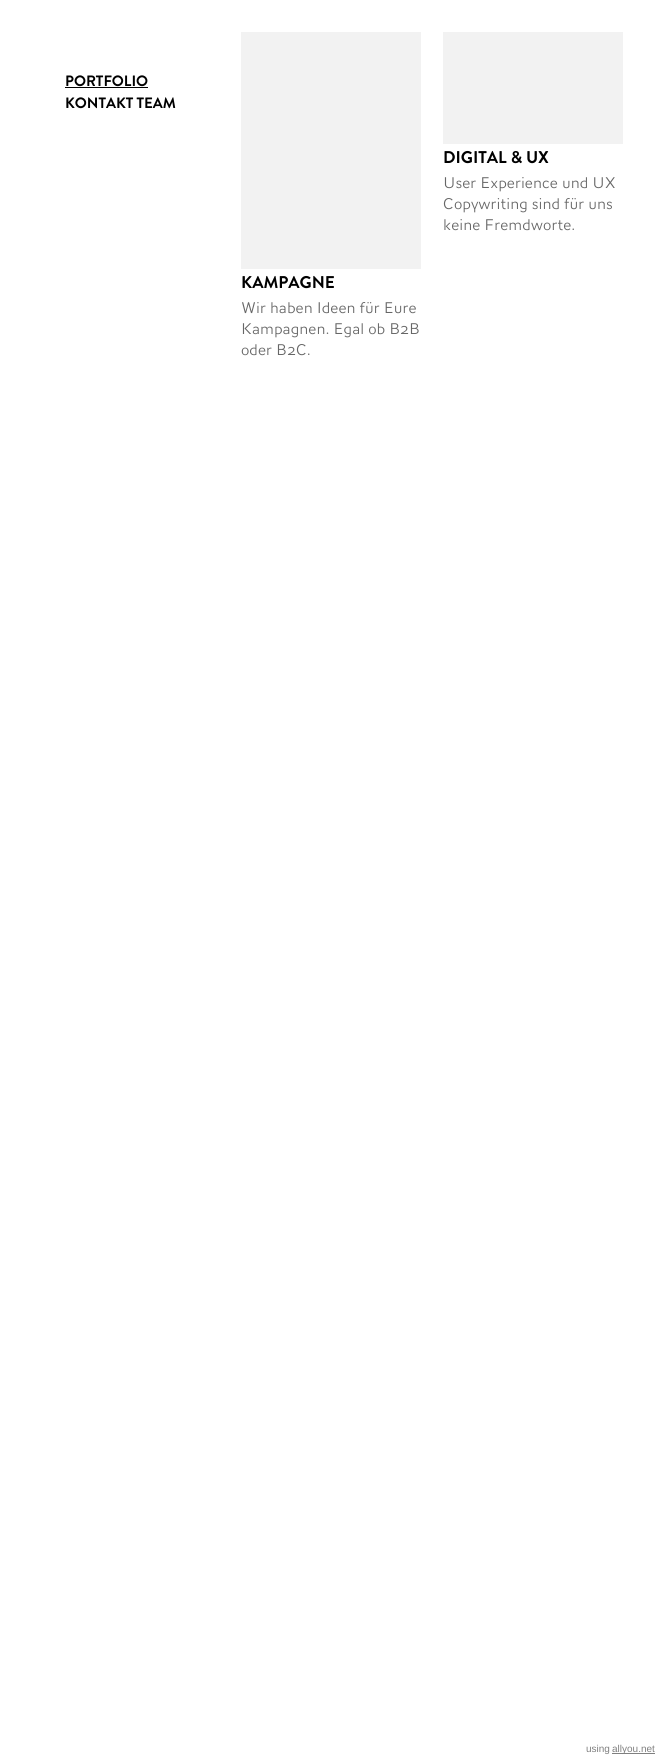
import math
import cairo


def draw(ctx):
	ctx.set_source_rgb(1, 1, 1)
	ctx.paint()
	ctx.select_font_face('Brandon Grotesque', cairo.FONT_SLANT_NORMAL, cairo.FONT_WEIGHT_BOLD)
	ctx.set_font_size(15)
	ctx.set_source_rgb(0, 0, 0)
	ctx.move_to(65, 86)
	ctx.show_text('PORTFOLIO')
	ctx.rectangle(65, 87, 83, 1)
	ctx.fill()
	ctx.move_to(65, 108)
	ctx.show_text('KONTAKT TEAM')
	ctx.set_source_rgb(0.949, 0.949, 0.949)
	ctx.rectangle(443, 32, 180, 112)
	ctx.fill()
	ctx.set_font_size(17)
	ctx.set_source_rgb(0, 0, 0)
	ctx.move_to(443, 163)
	ctx.show_text('DIGITAL & UX')
	ctx.select_font_face('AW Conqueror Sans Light')
	ctx.set_font_size(16)
	ctx.set_source_rgb(0.4, 0.4, 0.4)
	for x, y, s in [
		(443, 188, 'User Experience und UX'),
		(443, 209, 'Copywriting sind für uns'),
		(443, 230, 'keine Fremdworte.'),
	]:
		ctx.move_to(x, y)
		ctx.show_text(s)
	ctx.set_source_rgb(0.949, 0.949, 0.949)
	ctx.rectangle(241, 32, 180, 237)
	ctx.fill()
	ctx.select_font_face('Brandon Grotesque', cairo.FONT_SLANT_NORMAL, cairo.FONT_WEIGHT_BOLD)
	ctx.set_font_size(17)
	ctx.set_source_rgb(0, 0, 0)
	ctx.move_to(241, 288)
	ctx.show_text('KAMPAGNE')
	ctx.select_font_face('AW Conqueror Sans Light')
	ctx.set_font_size(16)
	ctx.set_source_rgb(0.4, 0.4, 0.4)
	for x, y, s in [
		(241, 313, 'Wir haben Ideen für Eure'),
		(241, 334, 'Kampagnen. Egal ob B2B'),
		(241, 355, 'oder B2C.'),
	]:
		ctx.move_to(x, y)
		ctx.show_text(s)
	ctx.select_font_face('Liberation Sans')
	ctx.set_font_size(10)
	ctx.set_source_rgb(0.502, 0.502, 0.502)
	ctx.move_to(586, 1752)
	ctx.show_text('using')
	ctx.rectangle(612, 1753, 43, 1)
	ctx.fill()
	ctx.move_to(612, 1752)
	ctx.show_text('allyou.net')


surface = cairo.ImageSurface(cairo.FORMAT_RGB24, 665, 1764)
ctx = cairo.Context(surface)
options = cairo.FontOptions()
options.set_hint_metrics(cairo.HINT_METRICS_OFF)
options.set_hint_style(cairo.HINT_STYLE_NONE)
ctx.set_font_options(options)
ctx.set_miter_limit(4)
draw(ctx)
surface.write_to_png('image.png')
